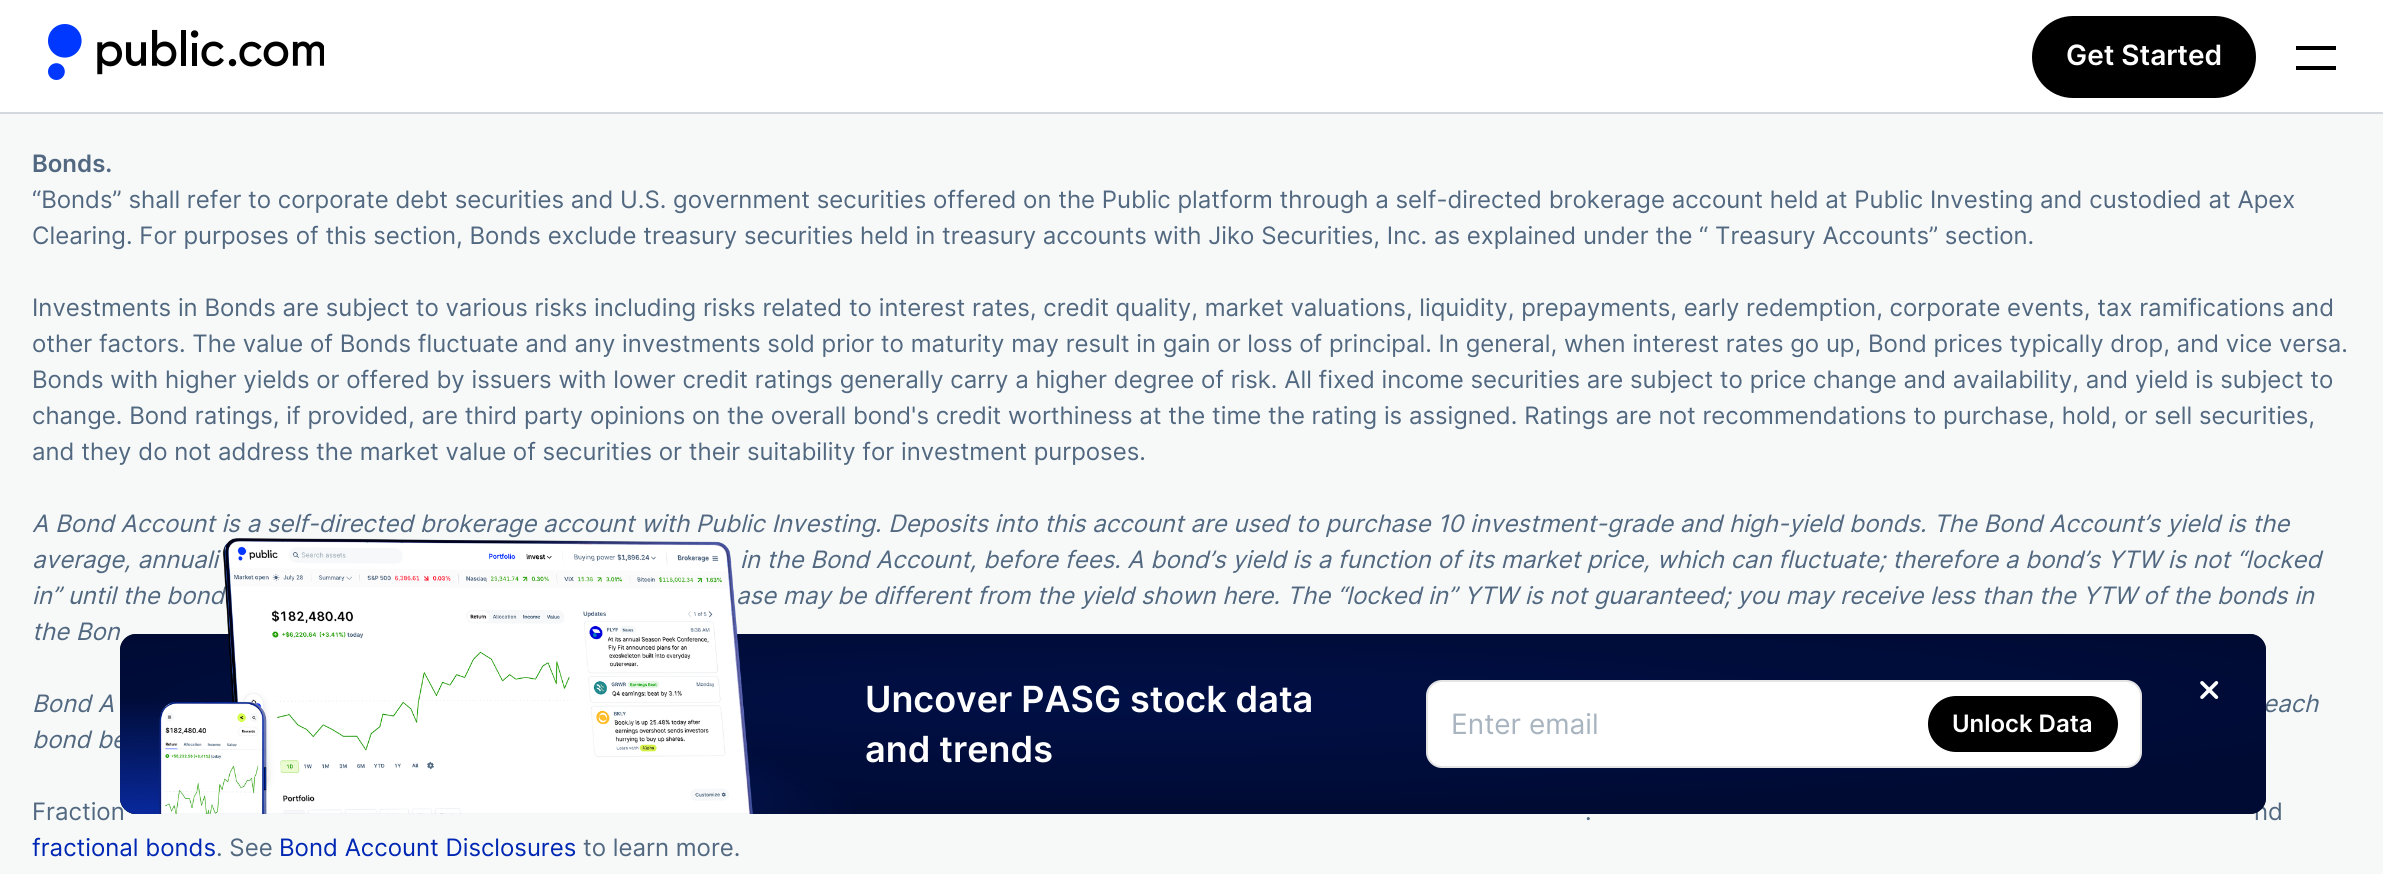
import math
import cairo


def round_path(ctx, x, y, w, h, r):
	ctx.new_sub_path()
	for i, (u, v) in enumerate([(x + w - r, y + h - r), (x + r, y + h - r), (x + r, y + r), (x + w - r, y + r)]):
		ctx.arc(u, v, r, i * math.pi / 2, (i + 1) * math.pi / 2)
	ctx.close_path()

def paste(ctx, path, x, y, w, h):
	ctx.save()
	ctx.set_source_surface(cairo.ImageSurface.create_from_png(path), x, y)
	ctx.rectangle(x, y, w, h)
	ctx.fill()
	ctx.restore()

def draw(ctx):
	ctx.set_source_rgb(0.965, 0.973, 0.976)
	ctx.paint()
	ctx.set_source_rgb(1, 1, 1)
	ctx.rectangle(0, 0, 2383, 112)
	ctx.fill()
	ctx.set_source_rgb(0.831, 0.851, 0.875)
	ctx.rectangle(0, 112, 2383, 2)
	ctx.fill()
	paste(ctx, 'media/1.png', 48, 24, 34, 56)
	paste(ctx, 'media/2.png', 97, 29, 227, 46)
	ctx.set_source_rgb(0, 0, 0)
	round_path(ctx, 2032, 16, 224, 82, 41)
	ctx.fill()
	ctx.select_font_face('Inter SemiBold')
	ctx.set_font_size(28)
	ctx.set_source_rgb(1, 1, 1)
	ctx.move_to(2066, 65)
	ctx.show_text('Get Started')
	ctx.set_source_rgb(0, 0, 0)
	ctx.rectangle(2296, 46, 40, 4)
	ctx.fill()
	ctx.rectangle(2296, 66, 40, 4)
	ctx.fill()
	ctx.set_font_size(24)
	ctx.set_source_rgb(0.318, 0.408, 0.502)
	ctx.move_to(32, 172)
	ctx.show_text('Bonds.')
	ctx.select_font_face('Inter')
	for x, y, s in [
		(32, 208, '“Bonds” shall refer to corporate debt securities and U.S. government securities offered on the Public platform through a self-directed brokerage account held at Public Investing and custodied at Apex'),
		(32, 244, 'Clearing. For purposes of this section, Bonds exclude treasury securities held in treasury accounts with Jiko Securities, Inc. as explained under the “ Treasury Accounts” section.'),
		(32, 316, 'Investments in Bonds are subject to various risks including risks related to interest rates, credit quality, market valuations, liquidity, prepayments, early redemption, corporate events, tax ramifications and'),
		(32, 352, 'other factors. The value of Bonds fluctuate and any investments sold prior to maturity may result in gain or loss of principal. In general, when interest rates go up, Bond prices typically drop, and vice versa.'),
		(32, 388, 'Bonds with higher yields or offered by issuers with lower credit ratings generally carry a higher degree of risk. All fixed income securities are subject to price change and availability, and yield is subject to'),
		(32, 424, 'change. Bond ratings, if provided, are third party opinions on the overall bond\'s credit worthiness at the time the rating is assigned. Ratings are not recommendations to purchase, hold, or sell securities,'),
		(32, 460, 'and they do not address the market value of securities or their suitability for investment purposes.'),
	]:
		ctx.move_to(x, y)
		ctx.show_text(s)
	ctx.select_font_face('Inter', cairo.FONT_SLANT_ITALIC)
	for x, y, s in [
		(32, 532, 'A Bond Account is a self-directed brokerage account with Public Investing. Deposits into this account are used to purchase 10 investment-grade and high-yield bonds. The Bond Account’s yield is the'),
		(32, 568, 'average, annuali'),
		(740, 568, 'in the Bond Account, before fees. A bond’s yield is a function of its market price, which can fluctuate; therefore a bond’s YTW is not “locked'),
		(32, 604, 'in” until the bond'),
		(736, 604, 'ase may be different from the yield shown here. The “locked in” YTW is not guaranteed; you may receive less than the YTW of the bonds in'),
		(32, 640, 'the Bon'),
		(32, 712, 'Bond A'),
		(2263, 712, 'each'),
		(32, 748, 'bond be'),
	]:
		ctx.move_to(x, y)
		ctx.show_text(s)
	ctx.select_font_face('Inter')
	for x, y, s in [
		(32, 820, 'Fraction'),
		(1585, 820, '.'),
		(2254, 820, 'nd'),
	]:
		ctx.move_to(x, y)
		ctx.show_text(s)
	ctx.set_source_rgb(0, 0.153, 0.702)
	ctx.move_to(32, 856)
	ctx.show_text('fractional bonds')
	ctx.set_source_rgb(0.318, 0.408, 0.502)
	ctx.move_to(216, 856)
	ctx.show_text('. See')
	ctx.set_source_rgb(0, 0.153, 0.702)
	ctx.move_to(279, 856)
	ctx.show_text('Bond Account Disclosures')
	ctx.set_source_rgb(0.318, 0.408, 0.502)
	ctx.move_to(583, 856)
	ctx.show_text('to learn more.')
	gradient = cairo.RadialGradient(0, 0, 0, 0, 0, 1)
	gradient.set_matrix(cairo.Matrix(1 / 1386, 0, 0, 1 / 113, -1 * 1137 / 1386, -1 * 702 / 113))
	gradient.add_color_stop_rgba(0, 0, 0.078, 0.365, 1)
	gradient.add_color_stop_rgba(1, 0, 0, 0, 1)
	ctx.set_source(gradient)
	round_path(ctx, 120, 634, 2146, 180, 16)
	ctx.fill()
	ctx.set_source_rgba(0, 0.055, 0.251, 0.8)
	round_path(ctx, 120, 634, 2146, 180, 16)
	ctx.fill()
	gradient = cairo.RadialGradient(0, 0, 0, 0, 0, 1)
	gradient.set_matrix(cairo.Matrix(1 / 718, 0, 0, 1 / 116, -1 * 143 / 718, -1 * 814 / 116))
	gradient.add_color_stop_rgba(0, 0.035, 0.161, 0.616, 1)
	gradient.add_color_stop_rgba(1, 0.035, 0.161, 0.616, 0)
	ctx.set_source(gradient)
	round_path(ctx, 120, 634, 2146, 180, 16)
	ctx.fill()
	paste(ctx, 'media/3.png', 159, 538, 594, 276)
	ctx.select_font_face('Inter SemiBold')
	ctx.set_font_size(36)
	ctx.set_source_rgb(1, 1, 1)
	ctx.move_to(865, 712)
	ctx.show_text('Uncover PASG stock data')
	ctx.move_to(865, 762)
	ctx.show_text('and trends')
	round_path(ctx, 1426, 680, 716, 88, 16)
	ctx.fill()
	round_path(ctx, 1427, 681, 714, 86, 15)
	ctx.set_source_rgba(0.471, 0.471, 0.471, 0.2)
	ctx.stroke()
	ctx.select_font_face('Inter')
	ctx.set_font_size(28)
	ctx.set_source_rgb(0.659, 0.706, 0.749)
	ctx.move_to(1451, 734)
	ctx.show_text('Enter email')
	ctx.set_source_rgb(0, 0, 0)
	round_path(ctx, 1928, 696, 190, 56, 28)
	ctx.fill()
	ctx.select_font_face('Inter SemiBold')
	ctx.set_font_size(24)
	ctx.set_source_rgb(1, 1, 1)
	ctx.move_to(1952, 732)
	ctx.show_text('Unlock Data')
	paste(ctx, 'media/4.png', 2200, 681, 19, 18)


surface = cairo.ImageSurface(cairo.FORMAT_RGB24, 2383, 874)
ctx = cairo.Context(surface)
options = cairo.FontOptions()
options.set_hint_metrics(cairo.HINT_METRICS_OFF)
options.set_hint_style(cairo.HINT_STYLE_NONE)
ctx.set_font_options(options)
ctx.set_miter_limit(4)
draw(ctx)
surface.write_to_png('image.png')
